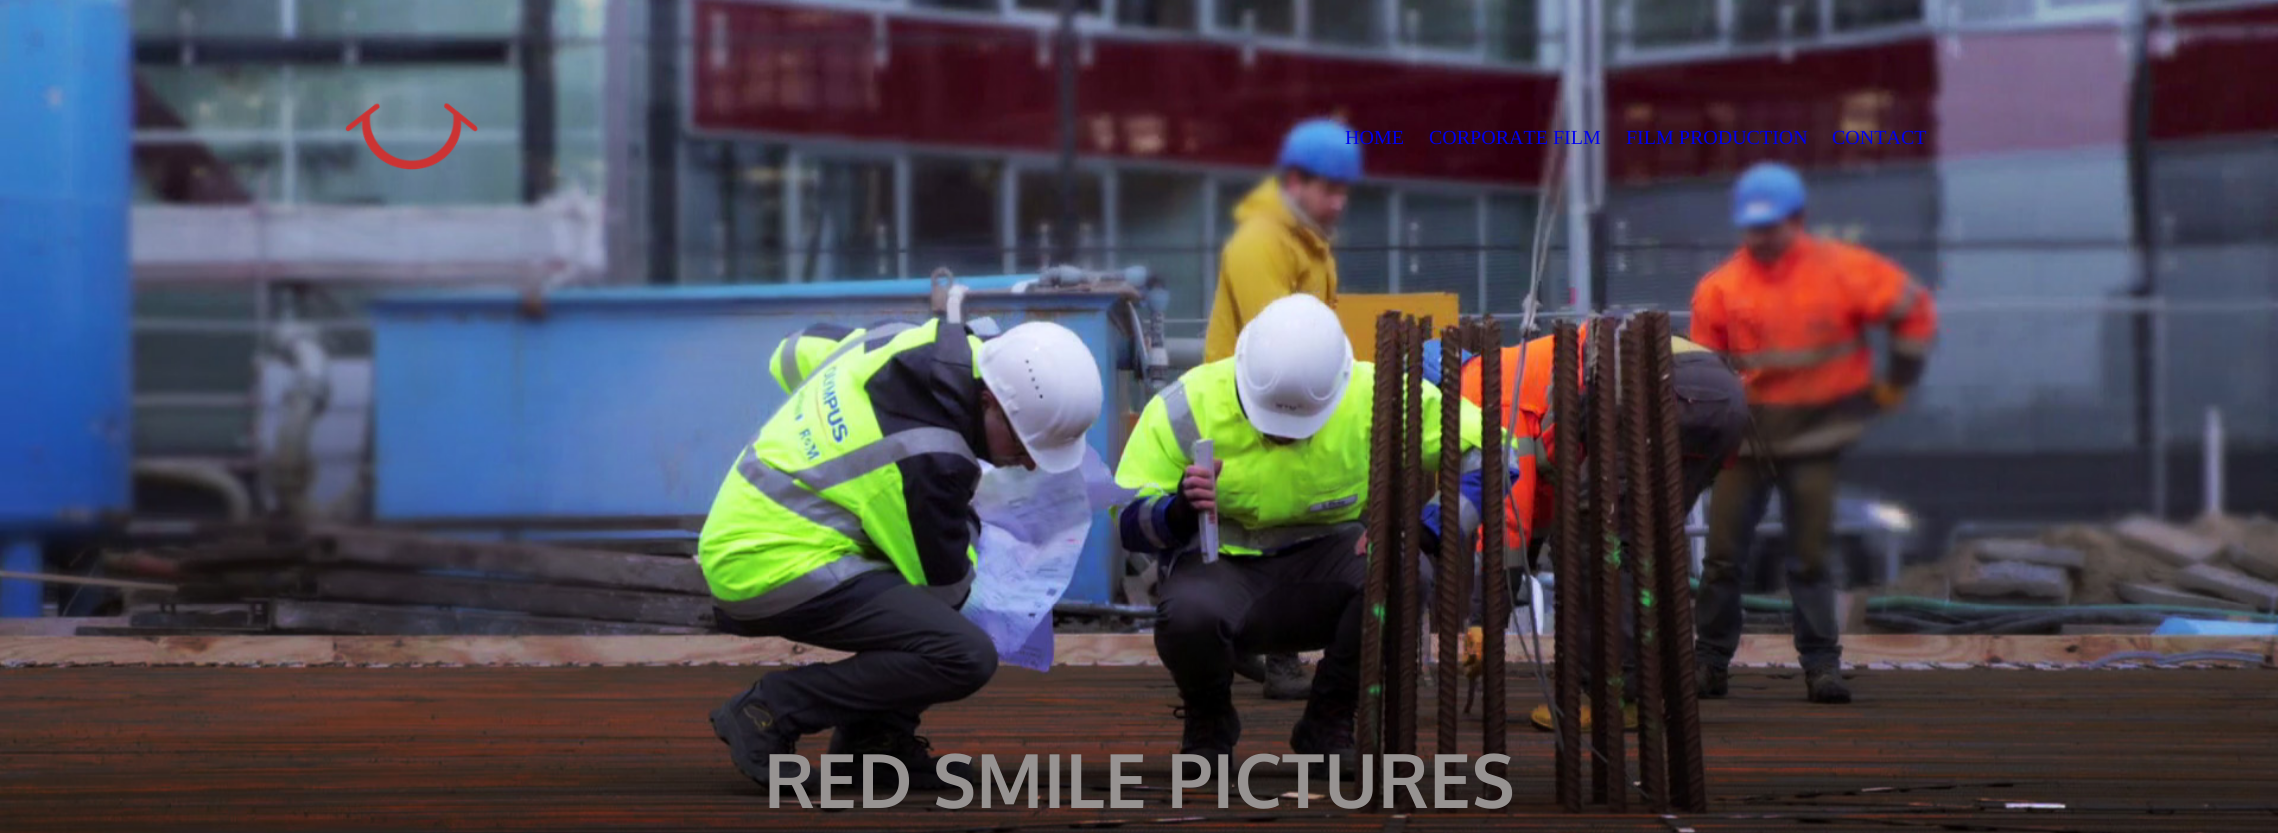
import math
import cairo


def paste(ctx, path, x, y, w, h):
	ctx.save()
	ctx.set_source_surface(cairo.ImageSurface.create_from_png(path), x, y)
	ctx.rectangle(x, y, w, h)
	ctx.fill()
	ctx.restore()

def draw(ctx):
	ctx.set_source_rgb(1, 1, 1)
	ctx.paint()
	paste(ctx, 'media/2.png', 0, 0, 2278, 833)
	paste(ctx, 'media/1.png', 345, 103, 133, 67)
	ctx.select_font_face('Liberation Serif')
	ctx.set_font_size(20)
	ctx.set_source_rgb(0, 0, 0.933)
	for x, y, s in [
		(1345, 144, 'HOME'),
		(1429, 144, 'CORPORATE FILM'),
		(1626, 144, 'FILM PRODUCTION'),
		(1832, 144, 'CONTACT'),
	]:
		ctx.move_to(x, y)
		ctx.show_text(s)
	ctx.select_font_face('Oxygen', cairo.FONT_SLANT_NORMAL, cairo.FONT_WEIGHT_BOLD)
	ctx.set_font_size(75)
	ctx.set_source_rgb(0.592, 0.576, 0.573)
	ctx.move_to(764, 808)
	ctx.show_text('RED SMILE PICTURES')


surface = cairo.ImageSurface(cairo.FORMAT_RGB24, 2278, 833)
ctx = cairo.Context(surface)
options = cairo.FontOptions()
options.set_hint_metrics(cairo.HINT_METRICS_OFF)
options.set_hint_style(cairo.HINT_STYLE_NONE)
ctx.set_font_options(options)
ctx.set_miter_limit(4)
draw(ctx)
surface.write_to_png('image.png')
